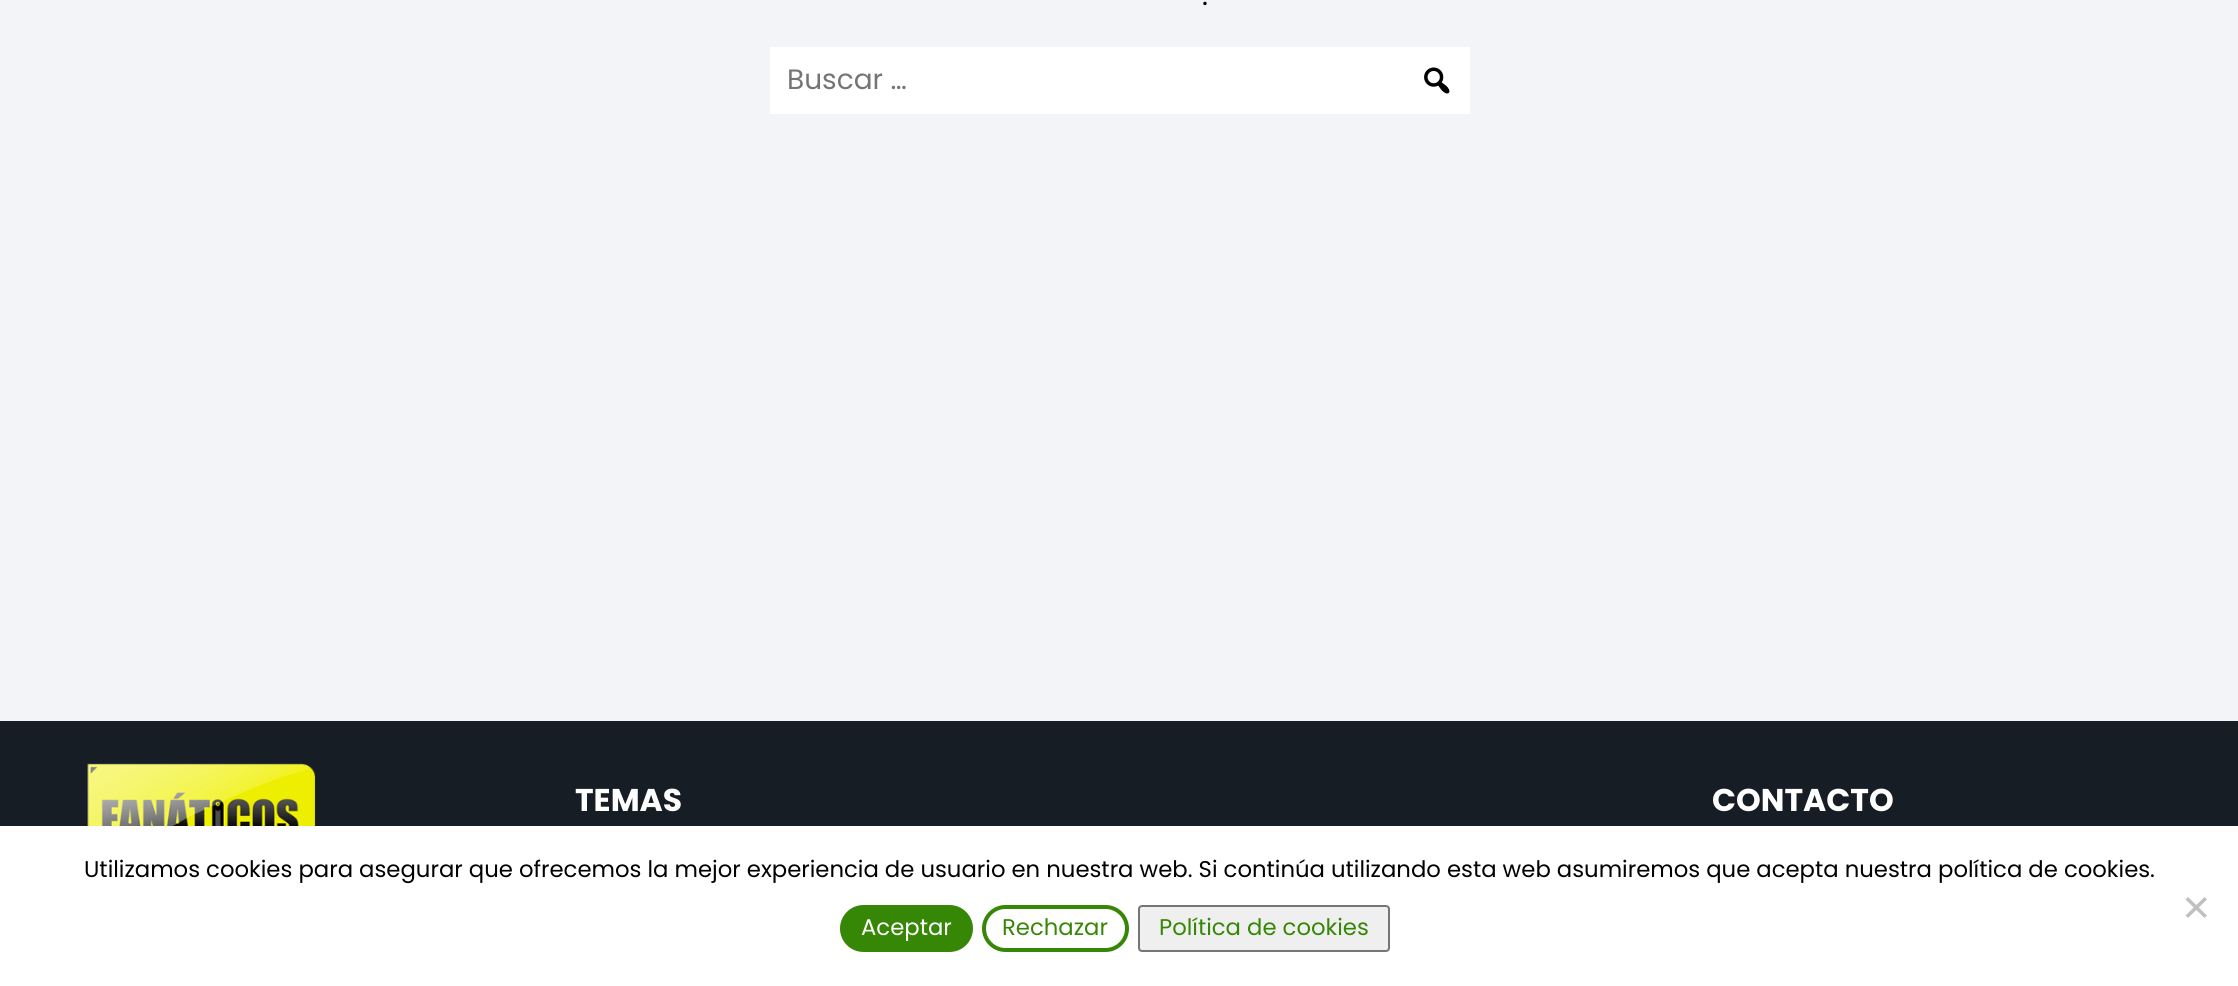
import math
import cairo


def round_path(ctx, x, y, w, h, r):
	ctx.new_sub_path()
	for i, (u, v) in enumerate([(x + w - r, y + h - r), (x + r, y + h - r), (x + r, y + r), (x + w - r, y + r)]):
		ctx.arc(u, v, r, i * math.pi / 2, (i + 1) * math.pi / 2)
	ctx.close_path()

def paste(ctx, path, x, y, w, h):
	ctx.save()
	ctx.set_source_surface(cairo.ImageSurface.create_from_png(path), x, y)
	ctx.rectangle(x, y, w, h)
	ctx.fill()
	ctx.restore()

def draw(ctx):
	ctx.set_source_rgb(0.949, 0.957, 0.965)
	ctx.paint()
	ctx.select_font_face('Poppins')
	ctx.set_font_size(28)
	ctx.set_source_rgb(0, 0, 0)
	ctx.move_to(1202, 5)
	ctx.show_text('.')
	ctx.set_source_rgb(1, 1, 1)
	ctx.rectangle(770, 47, 700, 67)
	ctx.fill()
	ctx.set_source_rgb(0.459, 0.459, 0.459)
	ctx.move_to(787, 89)
	ctx.show_text('Buscar …')
	paste(ctx, 'media/1.png', 1424, 67, 26, 27)
	ctx.set_source_rgb(0.086, 0.114, 0.145)
	ctx.rectangle(0, 721, 2238, 105)
	ctx.fill()
	paste(ctx, 'media/2.png', 87, 763, 229, 63)
	ctx.select_font_face('Poppins', cairo.FONT_SLANT_NORMAL, cairo.FONT_WEIGHT_BOLD)
	ctx.set_font_size(31.5)
	ctx.set_source_rgb(1, 1, 1)
	ctx.move_to(575, 811)
	ctx.show_text('TEMAS')
	ctx.move_to(1712, 811)
	ctx.show_text('CONTACTO')
	ctx.rectangle(0, 826, 2238, 160)
	ctx.fill()
	ctx.select_font_face('Poppins')
	ctx.set_font_size(22.75)
	ctx.set_source_rgb(0, 0, 0)
	ctx.move_to(84, 877)
	ctx.show_text('Utilizamos cookies para asegurar que ofrecemos la mejor experiencia de usuario en nuestra web. Si continúa utilizando esta web asumiremos que acepta nuestra política de cookies.')
	ctx.set_source_rgb(0.753, 0.753, 0.753)
	ctx.new_path()
	ctx.move_to(2204.5, 897)
	ctx.line_to(2207, 899.5)
	ctx.line_to(2188, 918)
	ctx.line_to(2185.5, 915.5)
	ctx.close_path()
	ctx.fill()
	ctx.new_path()
	ctx.move_to(2185.5, 899.5)
	ctx.line_to(2188, 897)
	ctx.line_to(2207, 915.5)
	ctx.line_to(2204.5, 918)
	ctx.close_path()
	ctx.fill()
	ctx.set_source_rgb(0.216, 0.529, 0.031)
	round_path(ctx, 842, 907, 129, 43, 21.5)
	ctx.fill_preserve()
	ctx.set_line_width(4)
	ctx.stroke()
	ctx.set_source_rgb(1, 1, 1)
	ctx.move_to(861, 935)
	ctx.show_text('Aceptar')
	round_path(ctx, 984, 907, 143, 43, 21.5)
	ctx.set_source_rgb(0.216, 0.529, 0.031)
	ctx.stroke()
	ctx.move_to(1002, 935)
	ctx.show_text('Rechazar')
	ctx.set_source_rgb(0.937, 0.937, 0.937)
	round_path(ctx, 1139, 906, 250, 45, 3)
	ctx.fill_preserve()
	ctx.set_source_rgb(0.463, 0.463, 0.463)
	ctx.set_line_width(2)
	ctx.stroke()
	ctx.set_source_rgb(0.216, 0.529, 0.031)
	ctx.move_to(1159, 935)
	ctx.show_text('Política de cookies')


surface = cairo.ImageSurface(cairo.FORMAT_RGB24, 2238, 986)
ctx = cairo.Context(surface)
options = cairo.FontOptions()
options.set_hint_metrics(cairo.HINT_METRICS_OFF)
options.set_hint_style(cairo.HINT_STYLE_NONE)
ctx.set_font_options(options)
ctx.set_miter_limit(4)
draw(ctx)
surface.write_to_png('image.png')
